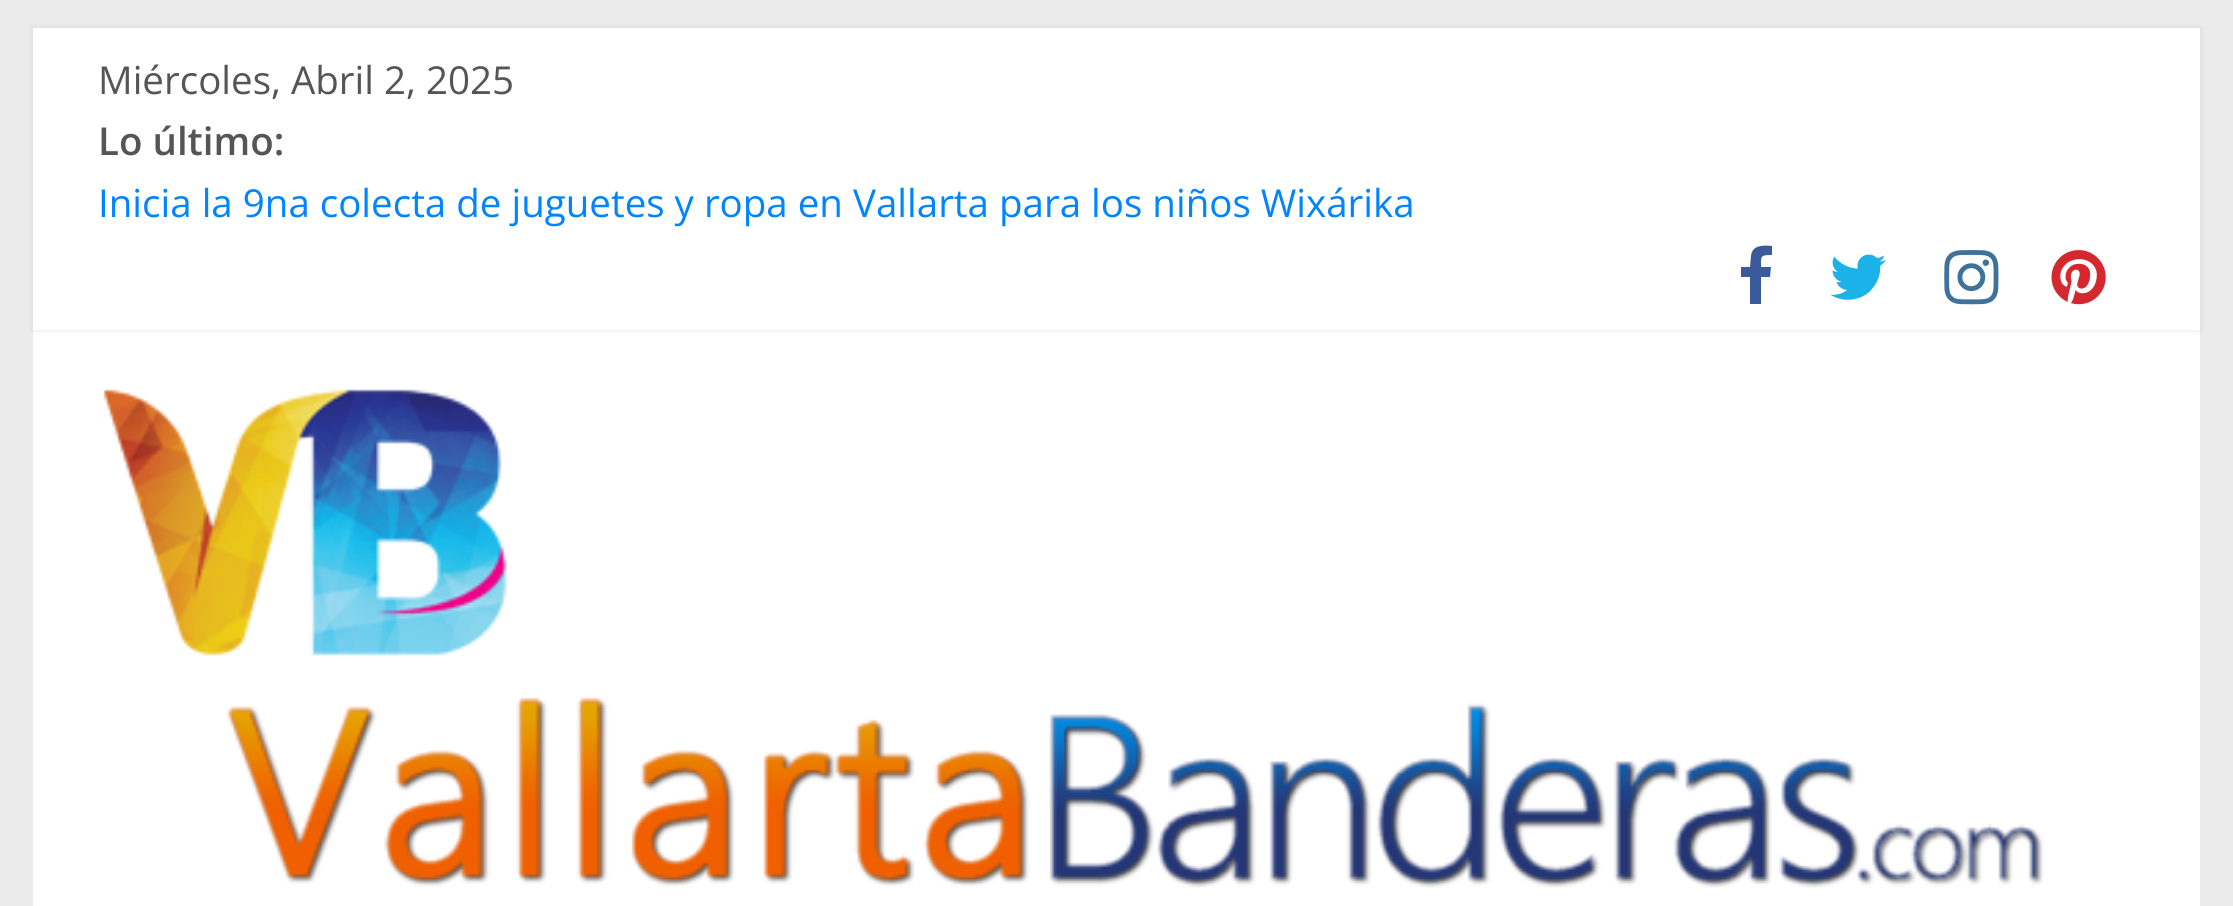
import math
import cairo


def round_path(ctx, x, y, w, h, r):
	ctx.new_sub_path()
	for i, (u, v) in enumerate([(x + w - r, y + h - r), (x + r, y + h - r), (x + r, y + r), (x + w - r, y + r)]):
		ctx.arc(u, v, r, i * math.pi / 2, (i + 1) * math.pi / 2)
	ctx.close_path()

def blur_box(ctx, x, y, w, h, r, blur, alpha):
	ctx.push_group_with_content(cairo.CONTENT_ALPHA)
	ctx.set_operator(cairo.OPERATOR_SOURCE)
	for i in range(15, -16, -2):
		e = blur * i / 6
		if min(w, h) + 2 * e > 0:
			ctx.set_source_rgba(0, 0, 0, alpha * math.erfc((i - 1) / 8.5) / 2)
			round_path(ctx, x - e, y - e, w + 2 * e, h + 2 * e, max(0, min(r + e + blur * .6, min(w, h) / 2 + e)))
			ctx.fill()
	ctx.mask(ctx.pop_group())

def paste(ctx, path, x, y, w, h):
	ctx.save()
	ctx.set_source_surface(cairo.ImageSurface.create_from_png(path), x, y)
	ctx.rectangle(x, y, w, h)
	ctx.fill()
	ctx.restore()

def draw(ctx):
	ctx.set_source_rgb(0.918, 0.918, 0.918)
	ctx.paint()
	ctx.set_source_rgb(1, 1, 1)
	ctx.rectangle(33, 28, 2167, 878)
	ctx.fill()
	ctx.save()
	ctx.set_fill_rule(cairo.FILL_RULE_EVEN_ODD)
	ctx.new_path()
	ctx.move_to(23, 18)
	ctx.line_to(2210, 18)
	ctx.line_to(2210, 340)
	ctx.line_to(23, 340)
	ctx.close_path()
	ctx.move_to(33, 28)
	ctx.line_to(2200, 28)
	ctx.line_to(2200, 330)
	ctx.line_to(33, 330)
	ctx.close_path()
	ctx.clip()
	ctx.set_source_rgb(0, 0, 0)
	blur_box(ctx, 33, 28, 2167, 302, 0, 3, 0.1)
	ctx.restore()
	ctx.select_font_face('Open Sans')
	ctx.set_font_size(38.5)
	ctx.set_source_rgb(0.333, 0.333, 0.333)
	ctx.move_to(98, 94)
	ctx.show_text('Miércoles, Abril 2, 2025')
	ctx.select_font_face('Open Sans SemiBold')
	ctx.move_to(98, 155)
	ctx.show_text('Lo último:')
	ctx.select_font_face('Open Sans')
	ctx.set_source_rgb(0, 0.518, 1)
	ctx.move_to(98, 217)
	ctx.show_text('Inicia la 9na colecta de juguetes y ropa en Vallarta para los niños Wixárika')
	ctx.set_source_rgb(0.231, 0.353, 0.608)
	ctx.new_path()
	ctx.move_to(1772, 246)
	ctx.line_to(1772, 255)
	ctx.curve_to(1760, 255, 1761, 256, 1761, 267)
	ctx.line_to(1771, 267)
	ctx.line_to(1770, 277)
	ctx.line_to(1761, 277)
	ctx.line_to(1761, 304)
	ctx.line_to(1750, 304)
	ctx.line_to(1750, 277)
	ctx.line_to(1741, 277)
	ctx.line_to(1741, 267)
	ctx.line_to(1750, 267)
	ctx.line_to(1751, 256)
	ctx.curve_to(1752, 245, 1763, 245, 1772, 246)
	ctx.close_path()
	ctx.fill()
	paste(ctx, 'media/1.png', 1830, 254, 56, 46)
	paste(ctx, 'media/2.png', 1944, 250, 55, 55)
	paste(ctx, 'media/3.png', 2051, 250, 55, 55)
	paste(ctx, 'media/4.png', 103, 389, 404, 267)
	paste(ctx, 'media/5.png', 227, 697, 1817, 191)


surface = cairo.ImageSurface(cairo.FORMAT_RGB24, 2233, 906)
ctx = cairo.Context(surface)
options = cairo.FontOptions()
options.set_hint_metrics(cairo.HINT_METRICS_OFF)
options.set_hint_style(cairo.HINT_STYLE_NONE)
ctx.set_font_options(options)
ctx.set_miter_limit(4)
draw(ctx)
surface.write_to_png('image.png')
